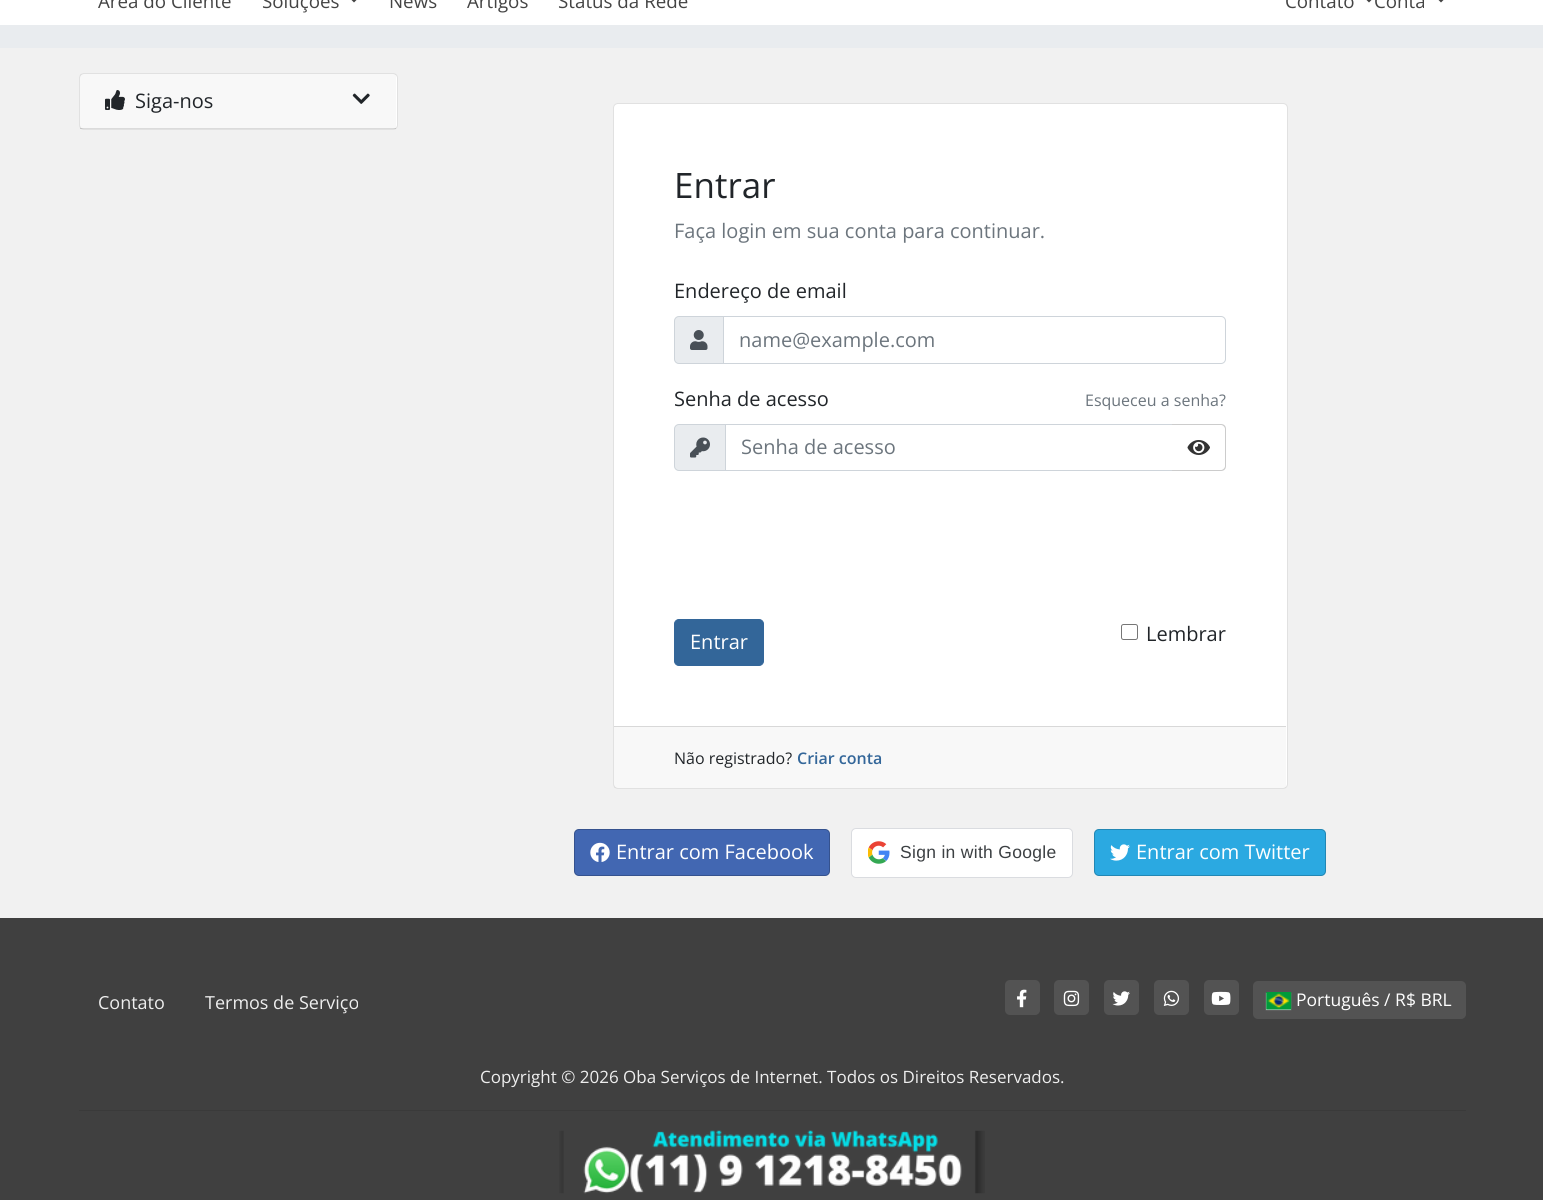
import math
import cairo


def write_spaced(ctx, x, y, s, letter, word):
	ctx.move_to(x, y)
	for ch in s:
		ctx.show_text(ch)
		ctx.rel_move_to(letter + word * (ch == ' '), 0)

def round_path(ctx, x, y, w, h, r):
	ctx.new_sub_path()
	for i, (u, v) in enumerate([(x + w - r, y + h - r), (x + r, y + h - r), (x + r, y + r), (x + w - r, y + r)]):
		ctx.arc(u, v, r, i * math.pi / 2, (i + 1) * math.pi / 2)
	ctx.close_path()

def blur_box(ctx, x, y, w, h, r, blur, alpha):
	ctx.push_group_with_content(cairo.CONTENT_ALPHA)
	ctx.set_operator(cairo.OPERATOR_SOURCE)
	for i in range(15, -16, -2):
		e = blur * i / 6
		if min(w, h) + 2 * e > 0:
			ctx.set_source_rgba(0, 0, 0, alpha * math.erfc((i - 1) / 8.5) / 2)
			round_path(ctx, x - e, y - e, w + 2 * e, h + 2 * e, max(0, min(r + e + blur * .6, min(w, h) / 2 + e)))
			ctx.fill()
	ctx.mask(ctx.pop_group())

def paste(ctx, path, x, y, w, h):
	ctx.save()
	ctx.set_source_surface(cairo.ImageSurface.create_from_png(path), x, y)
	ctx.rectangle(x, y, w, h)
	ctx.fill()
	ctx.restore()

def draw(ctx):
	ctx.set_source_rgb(0.945, 0.945, 0.945)
	ctx.paint()
	ctx.set_source_rgb(1, 1, 1)
	ctx.rectangle(0, 0, 1543, 25)
	ctx.fill()
	ctx.select_font_face('Open Sans')
	ctx.set_font_size(18.75)
	ctx.set_source_rgb(0.267, 0.267, 0.267)
	ctx.move_to(98, 8)
	ctx.show_text('Área do Cliente')
	ctx.move_to(262, 8)
	ctx.show_text('Soluções')
	ctx.new_path()
	ctx.move_to(349, -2.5)
	ctx.line_to(359, -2.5)
	ctx.line_to(354, 2.5)
	ctx.close_path()
	ctx.fill()
	for x, y, s in [
		(389, 8, 'News'),
		(467, 8, 'Artigos'),
		(558, 8, 'Status da Rede'),
		(1285, 8, 'Contato'),
	]:
		ctx.move_to(x, y)
		ctx.show_text(s)
	ctx.new_path()
	ctx.move_to(1364, -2.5)
	ctx.line_to(1374, -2.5)
	ctx.line_to(1369, 2.5)
	ctx.close_path()
	ctx.fill()
	ctx.move_to(1374, 8)
	ctx.show_text('Conta')
	ctx.new_path()
	ctx.move_to(1436, -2.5)
	ctx.line_to(1446, -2.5)
	ctx.line_to(1441, 2.5)
	ctx.close_path()
	ctx.fill()
	ctx.set_source_rgb(0.914, 0.925, 0.937)
	ctx.rectangle(0, 25, 1543, 23)
	ctx.fill()
	ctx.set_source_rgb(1, 1, 1)
	round_path(ctx, 79, 73, 319, 57, 5)
	ctx.fill()
	round_path(ctx, 79.5, 73.5, 318, 56, 4.5)
	ctx.set_source_rgba(0, 0, 0, 0.12)
	ctx.set_line_width(1)
	ctx.stroke()
	ctx.set_source_rgba(0, 0, 0, 0.03)
	ctx.rectangle(80, 74, 316, 55)
	ctx.fill()
	ctx.set_source_rgba(0, 0, 0, 0.12)
	ctx.rectangle(80, 128, 316, 1)
	ctx.fill()
	paste(ctx, 'media/1.png', 105, 90, 20, 20)
	ctx.set_font_size(20)
	ctx.set_source_rgb(0.129, 0.145, 0.161)
	ctx.move_to(135, 108)
	ctx.show_text('Siga-nos')
	paste(ctx, 'media/2.png', 352, 93, 18, 11)
	ctx.set_source_rgb(1, 1, 1)
	round_path(ctx, 613, 103, 675, 686, 5)
	ctx.fill()
	round_path(ctx, 613.5, 103.5, 674, 685, 4.5)
	ctx.set_source_rgba(0, 0, 0, 0.12)
	ctx.stroke()
	ctx.set_font_size(35)
	ctx.set_source_rgb(0.129, 0.145, 0.161)
	ctx.move_to(674, 198)
	ctx.show_text('Entrar')
	ctx.set_font_size(20)
	ctx.set_source_rgb(0.424, 0.459, 0.49)
	ctx.move_to(674, 238)
	ctx.show_text('Faça login em sua conta para continuar.')
	ctx.set_source_rgb(0.129, 0.145, 0.161)
	ctx.move_to(674, 298)
	ctx.show_text('Endereço de email')
	ctx.set_source_rgb(0.914, 0.925, 0.937)
	ctx.new_path()
	ctx.move_to(679, 316.5)
	ctx.line_to(723.5, 316.5)
	ctx.line_to(723.5, 363.5)
	ctx.line_to(679, 363.5)
	ctx.curve_to(676.5, 363.5, 674.5, 361.5, 674.5, 359)
	ctx.line_to(674.5, 321)
	ctx.curve_to(674.5, 318.5, 676.5, 316.5, 679, 316.5)
	ctx.close_path()
	ctx.fill_preserve()
	ctx.set_source_rgb(0.808, 0.831, 0.855)
	ctx.stroke()
	paste(ctx, 'media/3.png', 690, 330, 18, 20)
	ctx.new_path()
	ctx.move_to(723.5, 316.5)
	ctx.line_to(1221, 316.5)
	ctx.curve_to(1223.5, 316.5, 1225.5, 318.5, 1225.5, 321)
	ctx.line_to(1225.5, 359)
	ctx.curve_to(1225.5, 361.5, 1223.5, 363.5, 1221, 363.5)
	ctx.line_to(723.5, 363.5)
	ctx.close_path()
	ctx.stroke()
	ctx.set_source_rgb(0.424, 0.459, 0.49)
	ctx.move_to(739, 347)
	ctx.show_text('name@example.com')
	ctx.set_source_rgb(0.129, 0.145, 0.161)
	ctx.move_to(674, 406)
	ctx.show_text('Senha de acesso')
	ctx.set_font_size(16)
	ctx.set_source_rgb(0.424, 0.459, 0.49)
	ctx.move_to(1085, 406)
	ctx.show_text('Esqueceu a senha?')
	ctx.set_source_rgb(0.914, 0.925, 0.937)
	ctx.new_path()
	ctx.move_to(679, 424.5)
	ctx.line_to(725.5, 424.5)
	ctx.line_to(725.5, 470.5)
	ctx.line_to(679, 470.5)
	ctx.curve_to(676.5, 470.5, 674.5, 468.5, 674.5, 466)
	ctx.line_to(674.5, 429)
	ctx.curve_to(674.5, 426.5, 676.5, 424.5, 679, 424.5)
	ctx.close_path()
	ctx.fill_preserve()
	ctx.set_source_rgb(0.808, 0.831, 0.855)
	ctx.stroke()
	paste(ctx, 'media/4.png', 690, 437, 20, 21)
	ctx.rectangle(725.5, 424.5, 448, 46)
	ctx.stroke()
	ctx.set_font_size(20)
	ctx.set_source_rgb(0.424, 0.459, 0.49)
	ctx.move_to(741, 454)
	ctx.show_text('Senha de acesso')
	ctx.set_source_rgb(1, 1, 1)
	ctx.new_path()
	ctx.move_to(1173, 424)
	ctx.line_to(1221, 424)
	ctx.curve_to(1224, 424, 1226, 426, 1226, 429)
	ctx.line_to(1226, 466)
	ctx.curve_to(1226, 469, 1224, 471, 1221, 471)
	ctx.line_to(1173, 471)
	ctx.close_path()
	ctx.fill()
	ctx.set_source_rgb(0.8, 0.8, 0.8)
	ctx.set_fill_rule(cairo.FILL_RULE_EVEN_ODD)
	ctx.new_path()
	ctx.move_to(1172, 424)
	ctx.line_to(1221, 424)
	ctx.curve_to(1224, 424, 1226, 426, 1226, 429)
	ctx.line_to(1226, 466)
	ctx.curve_to(1226, 469, 1224, 471, 1221, 471)
	ctx.line_to(1172, 471)
	ctx.close_path()
	ctx.move_to(1172, 425)
	ctx.line_to(1221, 425)
	ctx.curve_to(1223, 425, 1225, 427, 1225, 429)
	ctx.line_to(1225, 466)
	ctx.curve_to(1225, 468, 1223, 470, 1221, 470)
	ctx.line_to(1172, 470)
	ctx.close_path()
	ctx.fill()
	paste(ctx, 'media/5.png', 1187, 440, 23, 15)
	ctx.set_source_rgb(0.2, 0.4, 0.6)
	round_path(ctx, 674.5, 619.5, 89, 46, 4.5)
	ctx.fill_preserve()
	ctx.stroke()
	ctx.set_source_rgb(1, 1, 1)
	ctx.move_to(690, 649)
	ctx.show_text('Entrar')
	round_path(ctx, 1121.5, 624.5, 16, 15, 2)
	ctx.set_source_rgb(0.463, 0.463, 0.463)
	ctx.stroke()
	ctx.set_source_rgb(0.129, 0.145, 0.161)
	ctx.move_to(1146, 641)
	ctx.show_text('Lembrar')
	ctx.set_source_rgba(0, 0, 0, 0.03)
	ctx.rectangle(614, 727, 672, 61)
	ctx.fill()
	ctx.set_source_rgb(0.847, 0.847, 0.847)
	ctx.rectangle(614, 726, 672, 1)
	ctx.fill()
	ctx.set_font_size(16)
	ctx.set_source_rgb(0.129, 0.145, 0.161)
	ctx.move_to(674, 764)
	ctx.show_text('Não registrado?')
	ctx.select_font_face('Open Sans SemiBold')
	ctx.set_source_rgb(0.2, 0.4, 0.6)
	ctx.move_to(797, 764)
	ctx.show_text('Criar conta')
	ctx.set_source_rgb(0.259, 0.404, 0.698)
	round_path(ctx, 574, 829, 256, 47, 5)
	ctx.fill()
	round_path(ctx, 574.5, 829.5, 255, 46, 4.5)
	ctx.set_source_rgba(0, 0, 0, 0.2)
	ctx.stroke()
	paste(ctx, 'media/6.png', 590, 842, 20, 20)
	ctx.select_font_face('Open Sans')
	ctx.set_font_size(20)
	ctx.set_source_rgb(1, 1, 1)
	ctx.move_to(616, 859)
	ctx.show_text('Entrar com Facebook')
	round_path(ctx, 851.5, 828.5, 221, 49, 4.5)
	ctx.fill_preserve()
	ctx.set_source_rgb(0.855, 0.863, 0.878)
	ctx.stroke()
	paste(ctx, 'media/7.png', 868, 841, 22, 23)
	ctx.select_font_face('Liberation Sans')
	ctx.set_font_size(17.5)
	ctx.set_source_rgb(0.235, 0.251, 0.263)
	write_spaced(ctx, 900, 858, 'Sign in with Google', 0.3, 0)
	ctx.set_source_rgb(0.169, 0.663, 0.882)
	round_path(ctx, 1094, 829, 232, 47, 5)
	ctx.fill()
	round_path(ctx, 1094.5, 829.5, 231, 46, 4.5)
	ctx.set_source_rgba(0, 0, 0, 0.2)
	ctx.stroke()
	paste(ctx, 'media/8.png', 1110, 844, 20, 17)
	ctx.select_font_face('Open Sans')
	ctx.set_font_size(20)
	ctx.set_source_rgb(1, 1, 1)
	ctx.move_to(1136, 859)
	ctx.show_text('Entrar com Twitter')
	ctx.set_source_rgb(0.251, 0.251, 0.251)
	ctx.rectangle(0, 918, 1543, 282)
	ctx.fill()
	ctx.set_font_size(18)
	ctx.set_source_rgb(0.933, 0.933, 0.933)
	ctx.move_to(98, 1009)
	ctx.show_text('Contato')
	ctx.move_to(205, 1009)
	ctx.show_text('Termos de Serviço')
	ctx.set_source_rgb(0.325, 0.325, 0.325)
	round_path(ctx, 1005, 980, 35, 35, 5)
	ctx.fill()
	paste(ctx, 'media/9.png', 1017, 989, 10, 19)
	round_path(ctx, 1054, 980, 35, 35, 5)
	ctx.fill()
	paste(ctx, 'media/10.png', 1063, 990, 17, 17)
	round_path(ctx, 1104, 980, 35, 35, 5)
	ctx.fill()
	paste(ctx, 'media/11.png', 1112, 991, 18, 15)
	round_path(ctx, 1154, 980, 35, 35, 5)
	ctx.fill()
	paste(ctx, 'media/12.png', 1163, 990, 17, 16)
	round_path(ctx, 1204, 980, 35, 35, 5)
	ctx.fill()
	paste(ctx, 'media/13.png', 1211, 991, 20, 14)
	round_path(ctx, 1253, 981, 213, 38, 5)
	ctx.fill()
	ctx.set_source_rgb(0.533, 0.533, 0.533)
	blur_box(ctx, 1266, 993, 25, 17, 0, 0.5, 1)
	ctx.set_source_rgb(0.859, 0.859, 0.859)
	ctx.rectangle(1266, 993, 25, 17)
	ctx.fill()
	paste(ctx, 'media/14.png', 1266, 992, 26, 18)
	ctx.set_font_size(17.5)
	ctx.set_source_rgb(1, 1, 1)
	ctx.move_to(1296, 1006)
	ctx.show_text('Português / R$ BRL')
	ctx.set_font_size(17)
	ctx.set_source_rgb(0.933, 0.933, 0.933)
	ctx.move_to(480, 1083)
	ctx.show_text('Copyright © 2026 Oba Serviços de Internet. Todos os Direitos Reservados.')
	ctx.set_source_rgb(0.227, 0.227, 0.227)
	ctx.rectangle(79, 1110, 1387, 1)
	ctx.fill()
	paste(ctx, 'media/15.png', 559, 1130, 426, 64)


surface = cairo.ImageSurface(cairo.FORMAT_RGB24, 1543, 1200)
ctx = cairo.Context(surface)
options = cairo.FontOptions()
options.set_hint_metrics(cairo.HINT_METRICS_OFF)
options.set_hint_style(cairo.HINT_STYLE_NONE)
ctx.set_font_options(options)
ctx.set_miter_limit(4)
draw(ctx)
surface.write_to_png('image.png')
